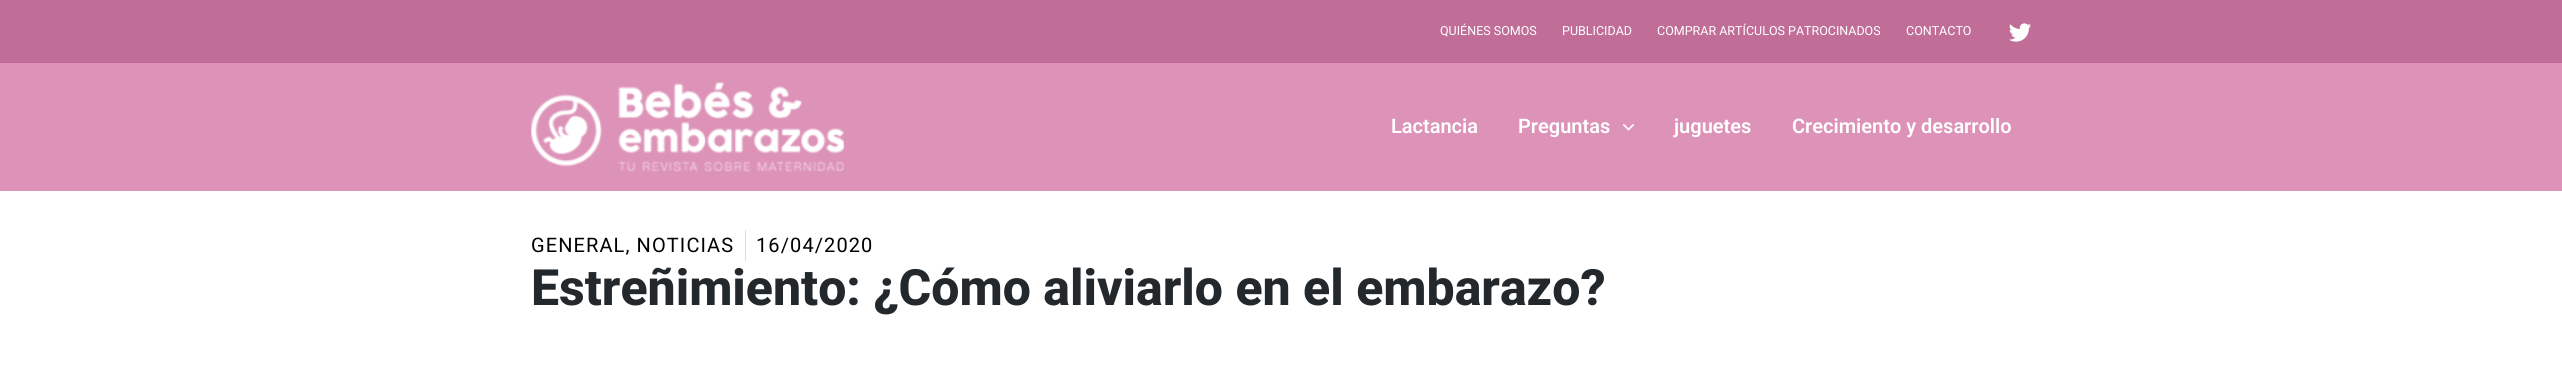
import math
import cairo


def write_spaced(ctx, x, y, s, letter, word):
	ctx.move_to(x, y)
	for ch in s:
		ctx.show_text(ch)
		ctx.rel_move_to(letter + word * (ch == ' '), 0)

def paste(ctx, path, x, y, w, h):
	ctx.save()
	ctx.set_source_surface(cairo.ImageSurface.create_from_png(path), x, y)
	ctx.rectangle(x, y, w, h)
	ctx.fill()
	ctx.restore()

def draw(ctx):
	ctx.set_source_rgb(1, 1, 1)
	ctx.paint()
	ctx.set_source_rgb(0.753, 0.431, 0.592)
	ctx.rectangle(0, 0, 2562, 63)
	ctx.fill()
	ctx.select_font_face('Roboto')
	ctx.set_font_size(12.5)
	ctx.set_source_rgb(1, 1, 1)
	for x, y, s in [
		(1440, 35, 'QUIÉNES SOMOS'),
		(1562, 35, 'PUBLICIDAD'),
		(1657, 35, 'COMPRAR ARTÍCULOS PATROCINADOS'),
		(1906, 35, 'CONTACTO'),
	]:
		ctx.move_to(x, y)
		ctx.show_text(s)
	paste(ctx, 'media/1.png', 2009, 23, 22, 19)
	ctx.set_source_rgb(0.867, 0.576, 0.722)
	ctx.rectangle(0, 63, 2562, 128)
	ctx.fill()
	paste(ctx, 'media/2.png', 531, 82, 313, 90)
	ctx.select_font_face('Roboto SemiBold')
	ctx.set_font_size(20)
	ctx.set_source_rgb(1, 1, 1)
	ctx.move_to(1391, 133)
	ctx.show_text('Lactancia')
	ctx.move_to(1518, 133)
	ctx.show_text('Preguntas')
	paste(ctx, 'media/3.png', 1623, 123, 11, 8)
	ctx.move_to(1674, 133)
	ctx.show_text('juguetes')
	ctx.move_to(1792, 133)
	ctx.show_text('Crecimiento y desarrollo')
	ctx.select_font_face('Roboto')
	ctx.set_source_rgb(0, 0, 0)
	write_spaced(ctx, 531, 252, 'GENERAL, NOTICIAS', 1.1, 0)
	ctx.set_source_rgb(0.867, 0.867, 0.867)
	ctx.rectangle(745, 230, 1, 31)
	ctx.fill()
	ctx.set_source_rgb(0, 0, 0)
	write_spaced(ctx, 756, 252, '16/04/2020', 1.1, 0)
	ctx.select_font_face('Roboto ExtraBold')
	ctx.set_font_size(50)
	ctx.set_source_rgb(0.137, 0.157, 0.176)
	ctx.move_to(531, 305)
	ctx.show_text('Estreñimiento: ¿Cómo aliviarlo en el embarazo?')


surface = cairo.ImageSurface(cairo.FORMAT_RGB24, 2562, 379)
ctx = cairo.Context(surface)
options = cairo.FontOptions()
options.set_hint_metrics(cairo.HINT_METRICS_OFF)
options.set_hint_style(cairo.HINT_STYLE_NONE)
ctx.set_font_options(options)
ctx.set_miter_limit(4)
draw(ctx)
surface.write_to_png('image.png')
